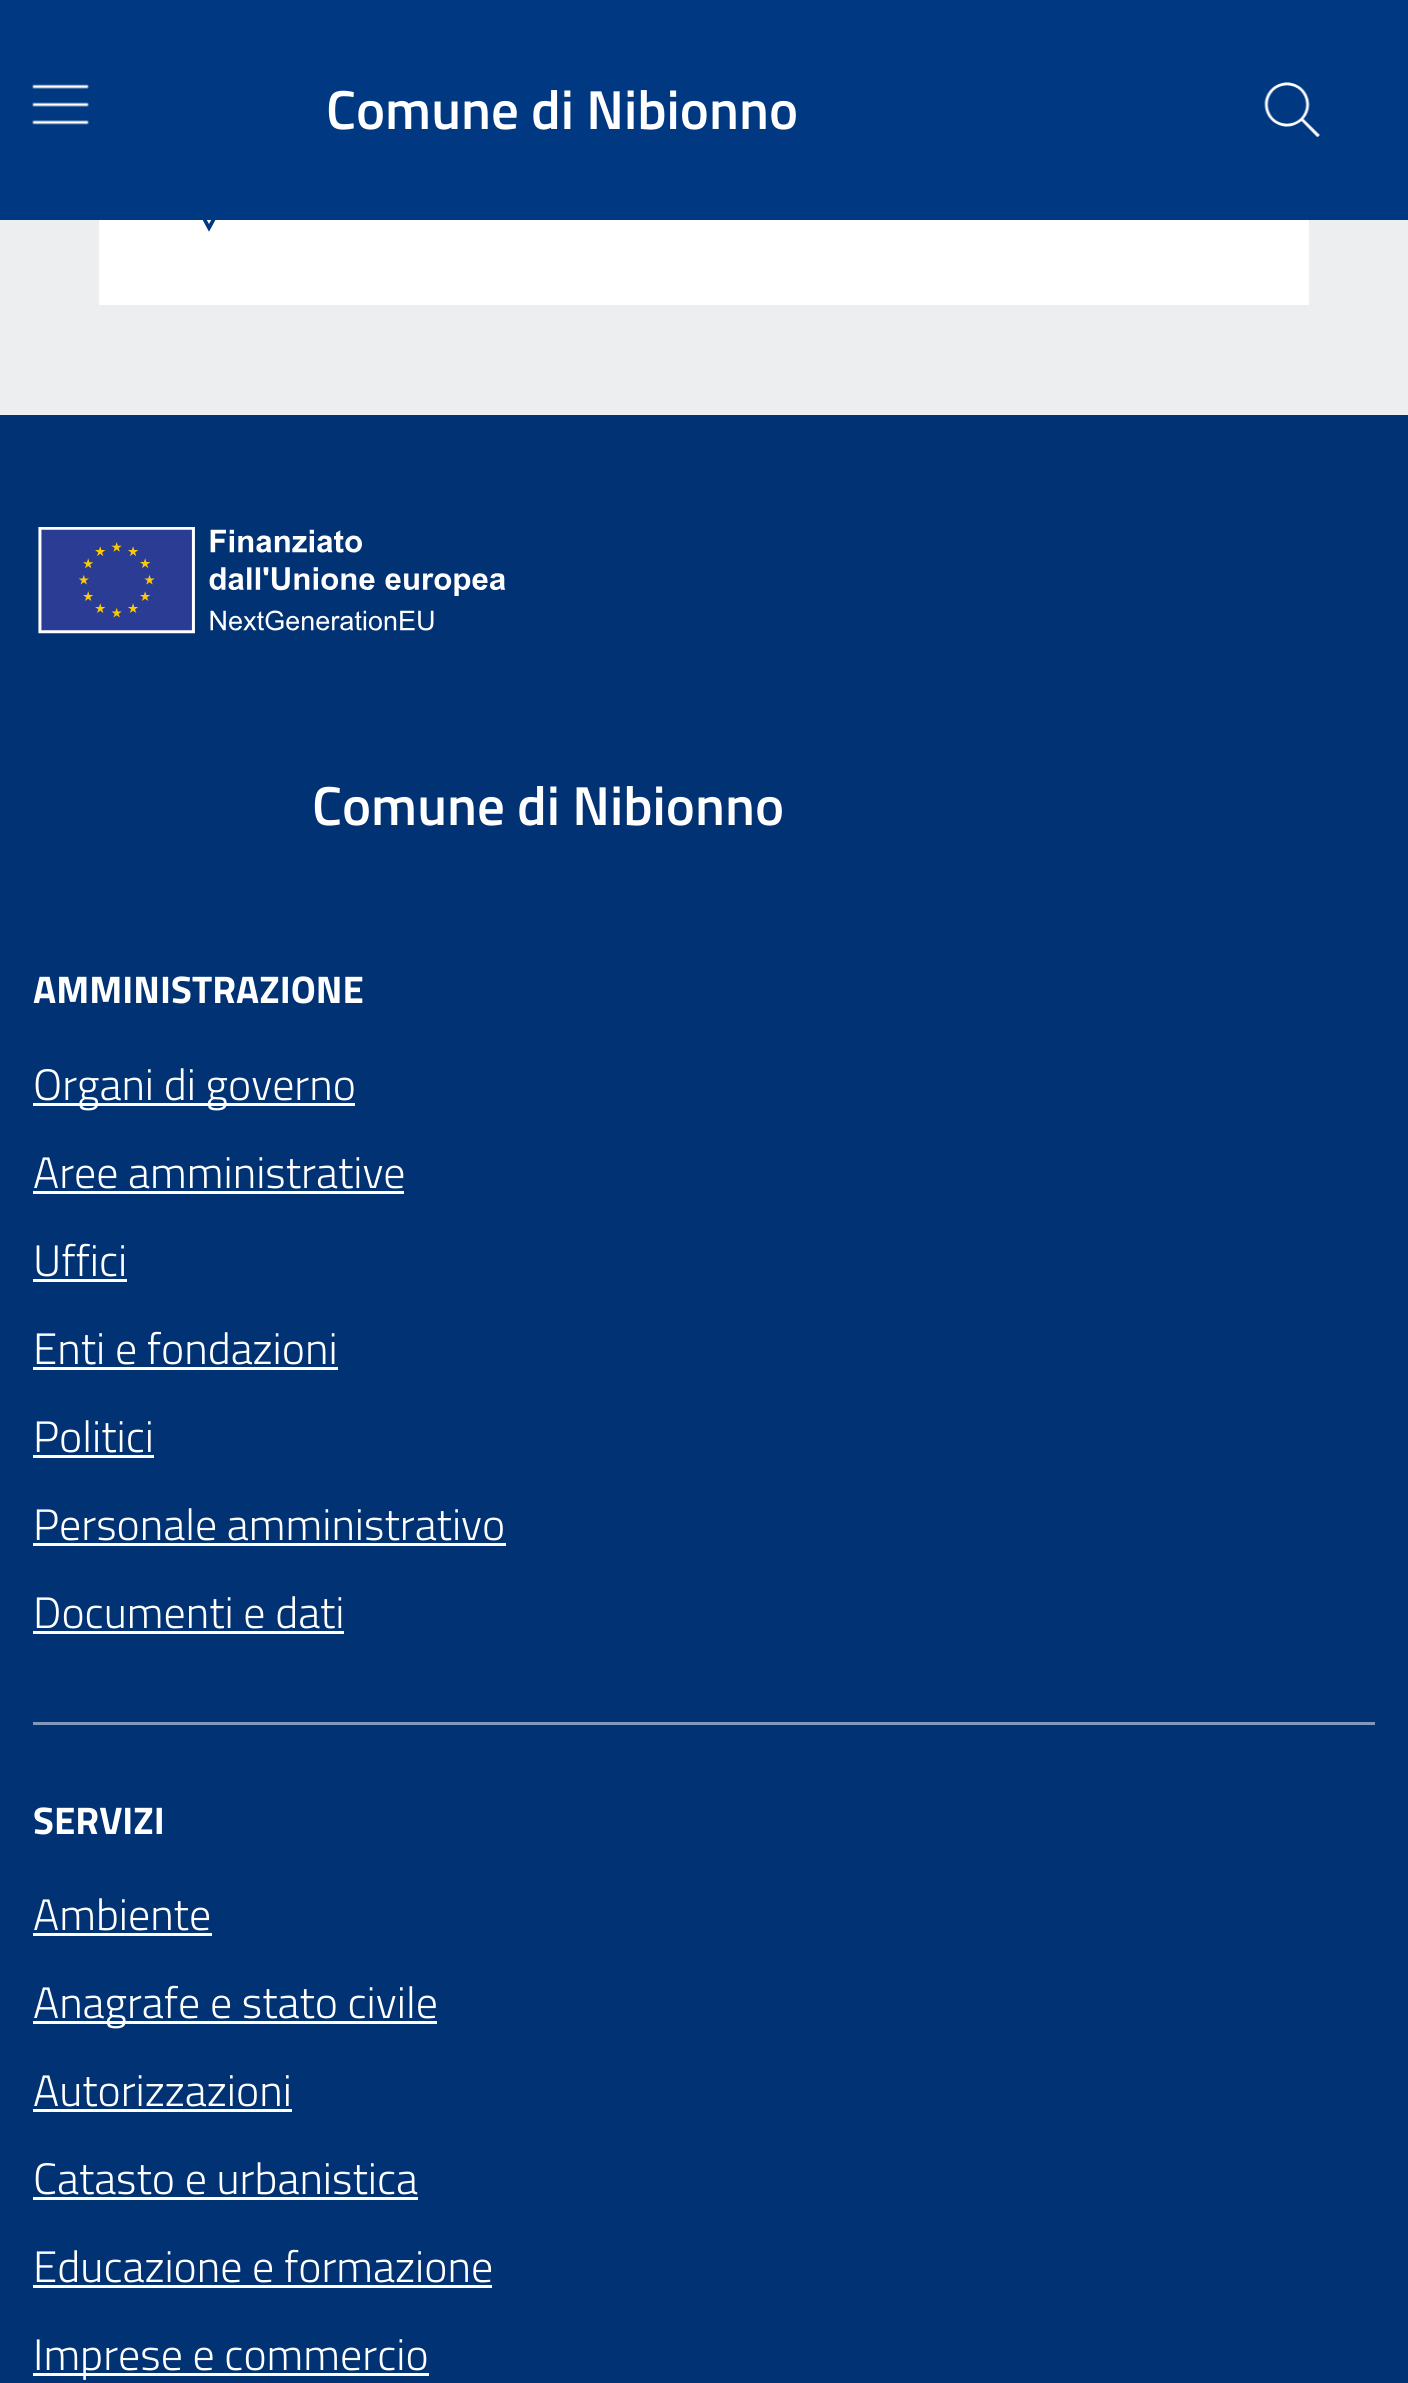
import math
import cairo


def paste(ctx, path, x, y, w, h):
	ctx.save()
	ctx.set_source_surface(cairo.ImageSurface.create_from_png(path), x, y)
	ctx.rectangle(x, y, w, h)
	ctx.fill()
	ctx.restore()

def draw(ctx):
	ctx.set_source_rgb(0.922, 0.933, 0.941)
	ctx.paint()
	ctx.set_source_rgb(0, 0.22, 0.51)
	ctx.rectangle(0, 0, 1408, 220)
	ctx.fill()
	paste(ctx, 'media/1.png', 32, 84, 57, 41)
	ctx.select_font_face('Titillium Web SemiBold')
	ctx.set_font_size(55)
	ctx.set_source_rgb(1, 1, 1)
	ctx.move_to(326, 129)
	ctx.show_text('Comune di Nibionno')
	paste(ctx, 'media/2.png', 1264, 82, 56, 55)
	ctx.rectangle(99, 220, 1210, 85)
	ctx.fill()
	paste(ctx, 'media/3.png', 202, 220, 14, 12)
	ctx.set_source_rgb(0, 0.196, 0.455)
	ctx.rectangle(0, 415, 1408, 1968)
	ctx.fill()
	paste(ctx, 'media/4.png', 38, 527, 468, 107)
	ctx.set_source_rgb(1, 1, 1)
	ctx.move_to(312, 825)
	ctx.show_text('Comune di Nibionno')
	ctx.select_font_face('Titillium Web', cairo.FONT_SLANT_NORMAL, cairo.FONT_WEIGHT_BOLD)
	ctx.set_font_size(38.5)
	ctx.move_to(33, 1003)
	ctx.show_text('AMMINISTRAZIONE')
	ctx.rectangle(33, 1103, 322, 3)
	ctx.fill()
	ctx.select_font_face('Titillium Web Light')
	ctx.set_font_size(44)
	ctx.move_to(33, 1100)
	ctx.show_text('Organi di governo')
	ctx.move_to(33, 1188)
	ctx.show_text('Aree amministrative')
	ctx.rectangle(33, 1191, 371, 3)
	ctx.fill()
	ctx.move_to(33, 1276)
	ctx.show_text('Uffici')
	ctx.rectangle(33, 1279, 94, 3)
	ctx.fill()
	ctx.move_to(33, 1364)
	ctx.show_text('Enti e fondazioni')
	ctx.rectangle(33, 1367, 305, 3)
	ctx.fill()
	ctx.move_to(33, 1452)
	ctx.show_text('Politici')
	ctx.rectangle(33, 1455, 121, 3)
	ctx.fill()
	ctx.move_to(33, 1540)
	ctx.show_text('Personale amministrativo')
	ctx.rectangle(33, 1543, 473, 3)
	ctx.fill()
	ctx.move_to(33, 1628)
	ctx.show_text('Documenti e dati')
	ctx.rectangle(33, 1631, 311, 3)
	ctx.fill()
	ctx.set_source_rgb(0.502, 0.6, 0.729)
	ctx.rectangle(33, 1722, 1342, 3)
	ctx.fill()
	ctx.select_font_face('Titillium Web', cairo.FONT_SLANT_NORMAL, cairo.FONT_WEIGHT_BOLD)
	ctx.set_font_size(38.5)
	ctx.set_source_rgb(1, 1, 1)
	ctx.move_to(33, 1834)
	ctx.show_text('SERVIZI')
	ctx.select_font_face('Titillium Web Light')
	ctx.set_font_size(44)
	ctx.move_to(33, 1930)
	ctx.show_text('Ambiente')
	ctx.rectangle(33, 1933, 179, 3)
	ctx.fill()
	ctx.rectangle(33, 2021, 404, 3)
	ctx.fill()
	ctx.move_to(33, 2018)
	ctx.show_text('Anagrafe e stato civile')
	ctx.move_to(33, 2106)
	ctx.show_text('Autorizzazioni')
	ctx.rectangle(33, 2109, 259, 3)
	ctx.fill()
	ctx.move_to(33, 2194)
	ctx.show_text('Catasto e urbanistica')
	ctx.rectangle(33, 2197, 385, 3)
	ctx.fill()
	ctx.move_to(33, 2282)
	ctx.show_text('Educazione e formazione')
	ctx.rectangle(33, 2285, 459, 3)
	ctx.fill()
	ctx.rectangle(33, 2373, 396, 3)
	ctx.fill()
	ctx.move_to(33, 2370)
	ctx.show_text('Imprese e commercio')


surface = cairo.ImageSurface(cairo.FORMAT_RGB24, 1408, 2383)
ctx = cairo.Context(surface)
options = cairo.FontOptions()
options.set_hint_metrics(cairo.HINT_METRICS_OFF)
options.set_hint_style(cairo.HINT_STYLE_NONE)
ctx.set_font_options(options)
ctx.set_miter_limit(4)
draw(ctx)
surface.write_to_png('image.png')
